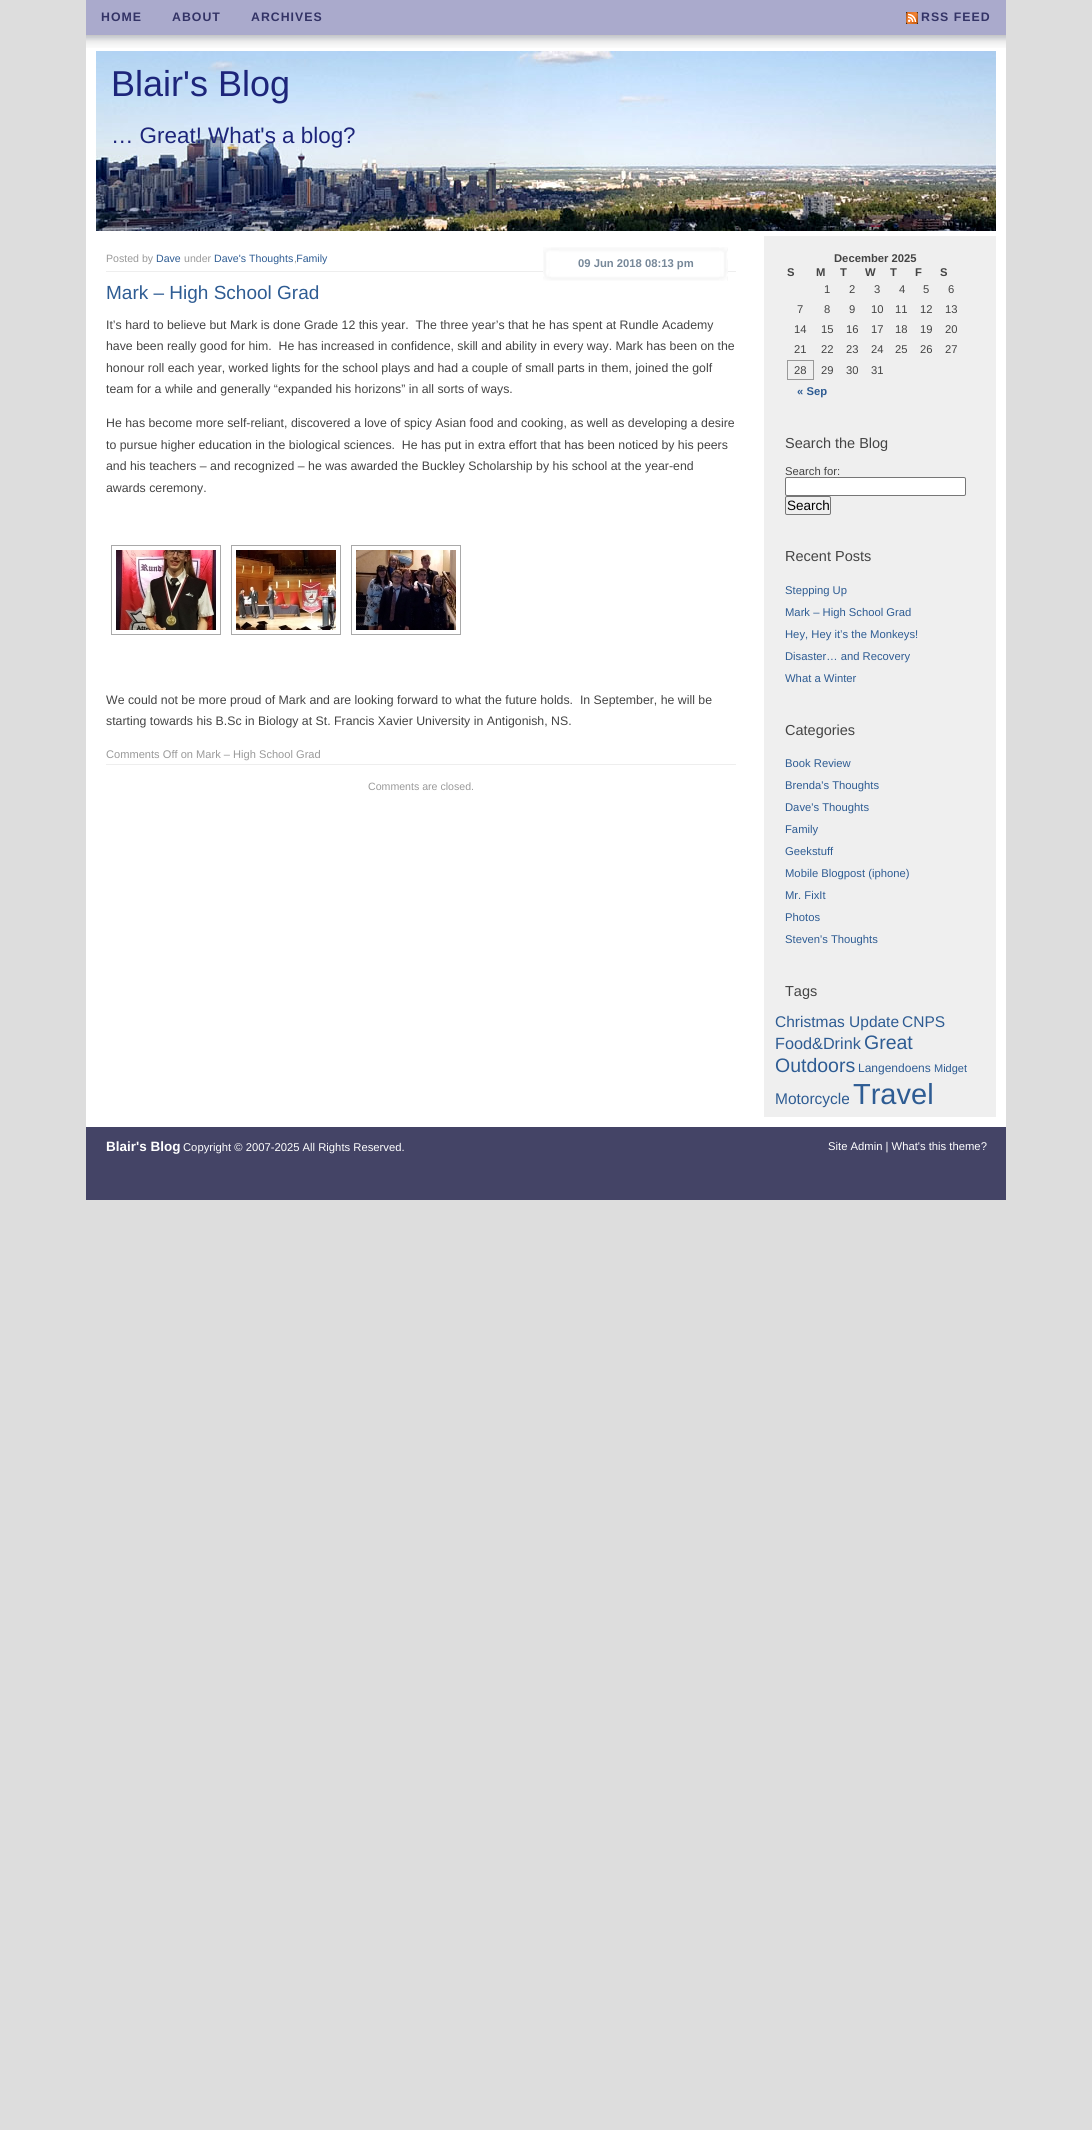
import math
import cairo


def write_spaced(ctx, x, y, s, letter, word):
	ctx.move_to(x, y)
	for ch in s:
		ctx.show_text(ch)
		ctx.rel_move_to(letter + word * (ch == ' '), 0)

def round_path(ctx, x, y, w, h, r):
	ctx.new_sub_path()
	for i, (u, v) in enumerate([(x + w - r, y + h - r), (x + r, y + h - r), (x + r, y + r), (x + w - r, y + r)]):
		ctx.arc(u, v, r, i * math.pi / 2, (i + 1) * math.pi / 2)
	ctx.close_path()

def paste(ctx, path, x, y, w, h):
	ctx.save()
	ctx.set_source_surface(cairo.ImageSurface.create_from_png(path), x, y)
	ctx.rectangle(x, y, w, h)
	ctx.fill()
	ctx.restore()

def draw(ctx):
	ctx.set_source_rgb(0.867, 0.867, 0.867)
	ctx.paint()
	ctx.set_source_rgb(0.667, 0.667, 0.8)
	ctx.rectangle(86, 0, 920, 35)
	ctx.fill()
	ctx.select_font_face('Liberation Sans', cairo.FONT_SLANT_NORMAL, cairo.FONT_WEIGHT_BOLD)
	ctx.set_font_size(12.32)
	ctx.set_source_rgb(0.2, 0.2, 0.4)
	for x, y, s in [
		(101, 21, 'HOME'),
		(172, 21, 'ABOUT'),
		(251, 21, 'ARCHIVES'),
	]:
		write_spaced(ctx, x, y, s, 1, 0)
	paste(ctx, 'media/1.png', 906, 12, 12, 12)
	write_spaced(ctx, 921, 21, 'RSS FEED', 1, 0)
	ctx.set_source_rgb(1, 1, 1)
	ctx.rectangle(86, 48, 920, 1079)
	ctx.fill()
	paste(ctx, 'media/2.png', 86, 35, 920, 13)
	paste(ctx, 'media/3.png', 96, 51, 900, 180)
	ctx.select_font_face('Liberation Sans')
	ctx.set_font_size(36)
	ctx.set_source_rgb(0.114, 0.145, 0.478)
	ctx.move_to(111, 96)
	ctx.show_text('Blair\'s Blog')
	ctx.set_font_size(22.4)
	ctx.move_to(111, 143)
	ctx.show_text('… Great! What\'s a blog?')
	ctx.set_source_rgb(0.933, 0.933, 0.933)
	ctx.rectangle(106, 271, 630, 1)
	ctx.fill()
	ctx.set_font_size(10.6)
	ctx.set_source_rgb(0.6, 0.6, 0.6)
	ctx.move_to(106, 262)
	ctx.show_text('Posted by')
	ctx.set_source_rgb(0.18, 0.361, 0.576)
	ctx.move_to(156, 262)
	ctx.show_text('Dave')
	ctx.set_source_rgb(0.6, 0.6, 0.6)
	ctx.move_to(184, 262)
	ctx.show_text('under')
	ctx.set_source_rgb(0.18, 0.361, 0.576)
	ctx.move_to(214, 262)
	ctx.show_text('Dave\'s Thoughts Family')
	ctx.set_source_rgb(0.6, 0.6, 0.6)
	ctx.move_to(294, 262)
	ctx.show_text(',')
	paste(ctx, 'media/4.png', 543, 247, 185, 34)
	ctx.select_font_face('Liberation Sans', cairo.FONT_SLANT_NORMAL, cairo.FONT_WEIGHT_BOLD)
	ctx.set_font_size(11.25)
	ctx.set_source_rgb(0.467, 0.533, 0.6)
	ctx.move_to(578, 267)
	ctx.show_text('09 Jun 2018 08:13 pm')
	ctx.select_font_face('Liberation Sans')
	ctx.set_font_size(19)
	ctx.set_source_rgb(0.18, 0.361, 0.576)
	ctx.move_to(106, 299)
	ctx.show_text('Mark – High School Grad')
	ctx.set_font_size(12.32)
	ctx.set_source_rgb(0.267, 0.267, 0.267)
	for x, y, s in [
		(106, 329, 'It’s hard to believe but Mark is done Grade 12 this year.  The three year’s that he has spent at Rundle Academy'),
		(106, 350, 'have been really good for him.  He has increased in confidence, skill and ability in every way. Mark has been on the'),
		(106, 372, 'honour roll each year, worked lights for the school plays and had a couple of small parts in them, joined the golf'),
		(106, 393, 'team for a while and generally “expanded his horizons” in all sorts of ways.'),
		(106, 427, 'He has become more self-reliant, discovered a love of spicy Asian food and cooking, as well as developing a desire'),
		(106, 449, 'to pursue higher education in the biological sciences.  He has put in extra effort that has been noticed by his peers'),
		(106, 470, 'and his teachers – and recognized – he was awarded the Buckley Scholarship by his school at the year-end'),
		(106, 492, 'awards ceremony.'),
	]:
		ctx.move_to(x, y)
		ctx.show_text(s)
	ctx.rectangle(111.5, 545.5, 109, 89)
	ctx.set_source_rgb(0.663, 0.663, 0.663)
	ctx.set_line_width(1)
	ctx.stroke()
	paste(ctx, 'media/5.png', 116, 550, 100, 80)
	ctx.rectangle(231.5, 545.5, 109, 89)
	ctx.stroke()
	paste(ctx, 'media/6.png', 236, 550, 100, 80)
	ctx.rectangle(351.5, 545.5, 109, 89)
	ctx.stroke()
	paste(ctx, 'media/7.png', 356, 550, 100, 80)
	ctx.set_source_rgb(0.267, 0.267, 0.267)
	ctx.move_to(106, 704)
	ctx.show_text('We could not be more proud of Mark and are looking forward to what the future holds.  In September, he will be')
	ctx.move_to(106, 725)
	ctx.show_text('starting towards his B.Sc in Biology at St. Francis Xavier University in Antigonish, NS.')
	ctx.set_source_rgb(0.933, 0.933, 0.933)
	ctx.rectangle(106, 764, 630, 1)
	ctx.fill()
	ctx.set_font_size(11.1)
	ctx.set_source_rgb(0.6, 0.6, 0.6)
	ctx.move_to(106, 758)
	ctx.show_text('Comments Off on Mark – High School Grad')
	ctx.set_font_size(10.6)
	ctx.move_to(368, 790)
	ctx.show_text('Comments are closed.')
	ctx.set_source_rgb(0.937, 0.937, 0.937)
	ctx.rectangle(764, 236, 232, 881)
	ctx.fill()
	ctx.select_font_face('Liberation Sans', cairo.FONT_SLANT_NORMAL, cairo.FONT_WEIGHT_BOLD)
	ctx.set_font_size(11.25)
	ctx.set_source_rgb(0.267, 0.267, 0.267)
	for x, y, s in [
		(834, 262, 'December 2025'),
		(787, 276, 'S'),
		(816, 276, 'M'),
		(840, 276, 'T'),
		(865, 276, 'W'),
		(890, 276, 'T'),
		(915, 276, 'F'),
		(940, 276, 'S'),
	]:
		ctx.move_to(x, y)
		ctx.show_text(s)
	ctx.select_font_face('Liberation Sans')
	for x, y, s in [
		(824, 293, '1'),
		(849, 293, '2'),
		(874, 293, '3'),
		(899, 293, '4'),
		(923, 293, '5'),
		(948, 293, '6'),
		(797, 313, '7'),
		(824, 313, '8'),
		(849, 313, '9'),
		(871, 313, '10'),
		(895, 313, '11'),
		(920, 313, '12'),
		(945, 313, '13'),
		(794, 333, '14'),
		(821, 333, '15'),
		(846, 333, '16'),
		(871, 333, '17'),
		(895, 333, '18'),
		(920, 333, '19'),
		(945, 333, '20'),
		(794, 353, '21'),
		(821, 353, '22'),
		(846, 353, '23'),
		(871, 353, '24'),
		(895, 353, '25'),
		(920, 353, '26'),
		(945, 353, '27'),
	]:
		ctx.move_to(x, y)
		ctx.show_text(s)
	ctx.rectangle(787.5, 360.5, 26, 19)
	ctx.set_source_rgb(0.6, 0.6, 0.6)
	ctx.stroke()
	ctx.set_source_rgb(0.267, 0.267, 0.267)
	for x, y, s in [
		(794, 374, '28'),
		(821, 374, '29'),
		(846, 374, '30'),
		(871, 374, '31'),
	]:
		ctx.move_to(x, y)
		ctx.show_text(s)
	ctx.select_font_face('Liberation Sans', cairo.FONT_SLANT_NORMAL, cairo.FONT_WEIGHT_BOLD)
	ctx.set_source_rgb(0.18, 0.361, 0.576)
	ctx.move_to(797, 395)
	ctx.show_text('« Sep')
	ctx.select_font_face('Liberation Sans')
	ctx.set_font_size(14.5)
	ctx.set_source_rgb(0.267, 0.267, 0.267)
	ctx.move_to(785, 448)
	ctx.show_text('Search the Blog')
	ctx.set_font_size(11.25)
	ctx.move_to(785, 475)
	ctx.show_text('Search for:')
	ctx.set_source_rgb(1, 1, 1)
	round_path(ctx, 785.5, 477.5, 180, 18, 1.5)
	ctx.fill_preserve()
	ctx.set_source_rgb(0.463, 0.463, 0.463)
	ctx.stroke()
	round_path(ctx, 785.5, 496.5, 45, 18, 1.5)
	ctx.stroke()
	ctx.set_font_size(13.5)
	ctx.set_source_rgb(0, 0, 0)
	ctx.move_to(787, 510)
	ctx.show_text('Search')
	ctx.set_font_size(14.5)
	ctx.set_source_rgb(0.267, 0.267, 0.267)
	ctx.move_to(785, 561)
	ctx.show_text('Recent Posts')
	ctx.set_font_size(11.25)
	ctx.set_source_rgb(0.18, 0.361, 0.576)
	for x, y, s in [
		(785, 594, 'Stepping Up'),
		(785, 616, 'Mark – High School Grad'),
		(785, 638, 'Hey, Hey it’s the Monkeys!'),
		(785, 660, 'Disaster… and Recovery'),
		(785, 682, 'What a Winter'),
	]:
		ctx.move_to(x, y)
		ctx.show_text(s)
	ctx.set_font_size(14.5)
	ctx.set_source_rgb(0.267, 0.267, 0.267)
	ctx.move_to(785, 735)
	ctx.show_text('Categories')
	ctx.set_font_size(11.25)
	ctx.set_source_rgb(0.18, 0.361, 0.576)
	for x, y, s in [
		(785, 767, 'Book Review'),
		(785, 789, 'Brenda\'s Thoughts'),
		(785, 811, 'Dave\'s Thoughts'),
		(785, 833, 'Family'),
		(785, 855, 'Geekstuff'),
		(785, 877, 'Mobile Blogpost (iphone)'),
		(785, 899, 'Mr. FixIt'),
		(785, 921, 'Photos'),
		(785, 943, 'Steven\'s Thoughts'),
	]:
		ctx.move_to(x, y)
		ctx.show_text(s)
	ctx.set_font_size(14.5)
	ctx.set_source_rgb(0.267, 0.267, 0.267)
	ctx.move_to(785, 996)
	ctx.show_text('Tags')
	ctx.set_font_size(15.5)
	ctx.set_source_rgb(0.18, 0.361, 0.576)
	ctx.move_to(775, 1027)
	ctx.show_text('Christmas Update')
	ctx.move_to(902, 1027)
	ctx.show_text('CNPS')
	ctx.set_font_size(16.25)
	ctx.move_to(775, 1049)
	ctx.show_text('Food&Drink')
	ctx.set_font_size(19.5)
	ctx.move_to(864, 1049)
	ctx.show_text('Great')
	ctx.move_to(775, 1072)
	ctx.show_text('Outdoors')
	ctx.set_font_size(12)
	ctx.move_to(858, 1072)
	ctx.show_text('Langendoens')
	ctx.set_font_size(11)
	ctx.move_to(934, 1072)
	ctx.show_text('Midget')
	ctx.set_font_size(15.5)
	ctx.move_to(775, 1104)
	ctx.show_text('Motorcycle')
	ctx.set_font_size(29)
	ctx.move_to(853, 1104)
	ctx.show_text('Travel')
	ctx.set_source_rgb(0.267, 0.267, 0.4)
	ctx.rectangle(86, 1127, 920, 73)
	ctx.fill()
	ctx.select_font_face('Liberation Sans', cairo.FONT_SLANT_NORMAL, cairo.FONT_WEIGHT_BOLD)
	ctx.set_font_size(13.5)
	ctx.set_source_rgb(1, 1, 1)
	ctx.move_to(106, 1151)
	ctx.show_text('Blair\'s Blog')
	ctx.select_font_face('Liberation Sans')
	ctx.set_font_size(11.25)
	ctx.move_to(183, 1151)
	ctx.show_text('Copyright © 2007-2025 All Rights Reserved.')
	ctx.move_to(828, 1150)
	ctx.show_text('Site Admin | What\'s this theme?')


surface = cairo.ImageSurface(cairo.FORMAT_RGB24, 1092, 2130)
ctx = cairo.Context(surface)
options = cairo.FontOptions()
options.set_hint_metrics(cairo.HINT_METRICS_OFF)
options.set_hint_style(cairo.HINT_STYLE_NONE)
ctx.set_font_options(options)
ctx.set_miter_limit(4)
draw(ctx)
surface.write_to_png('image.png')
